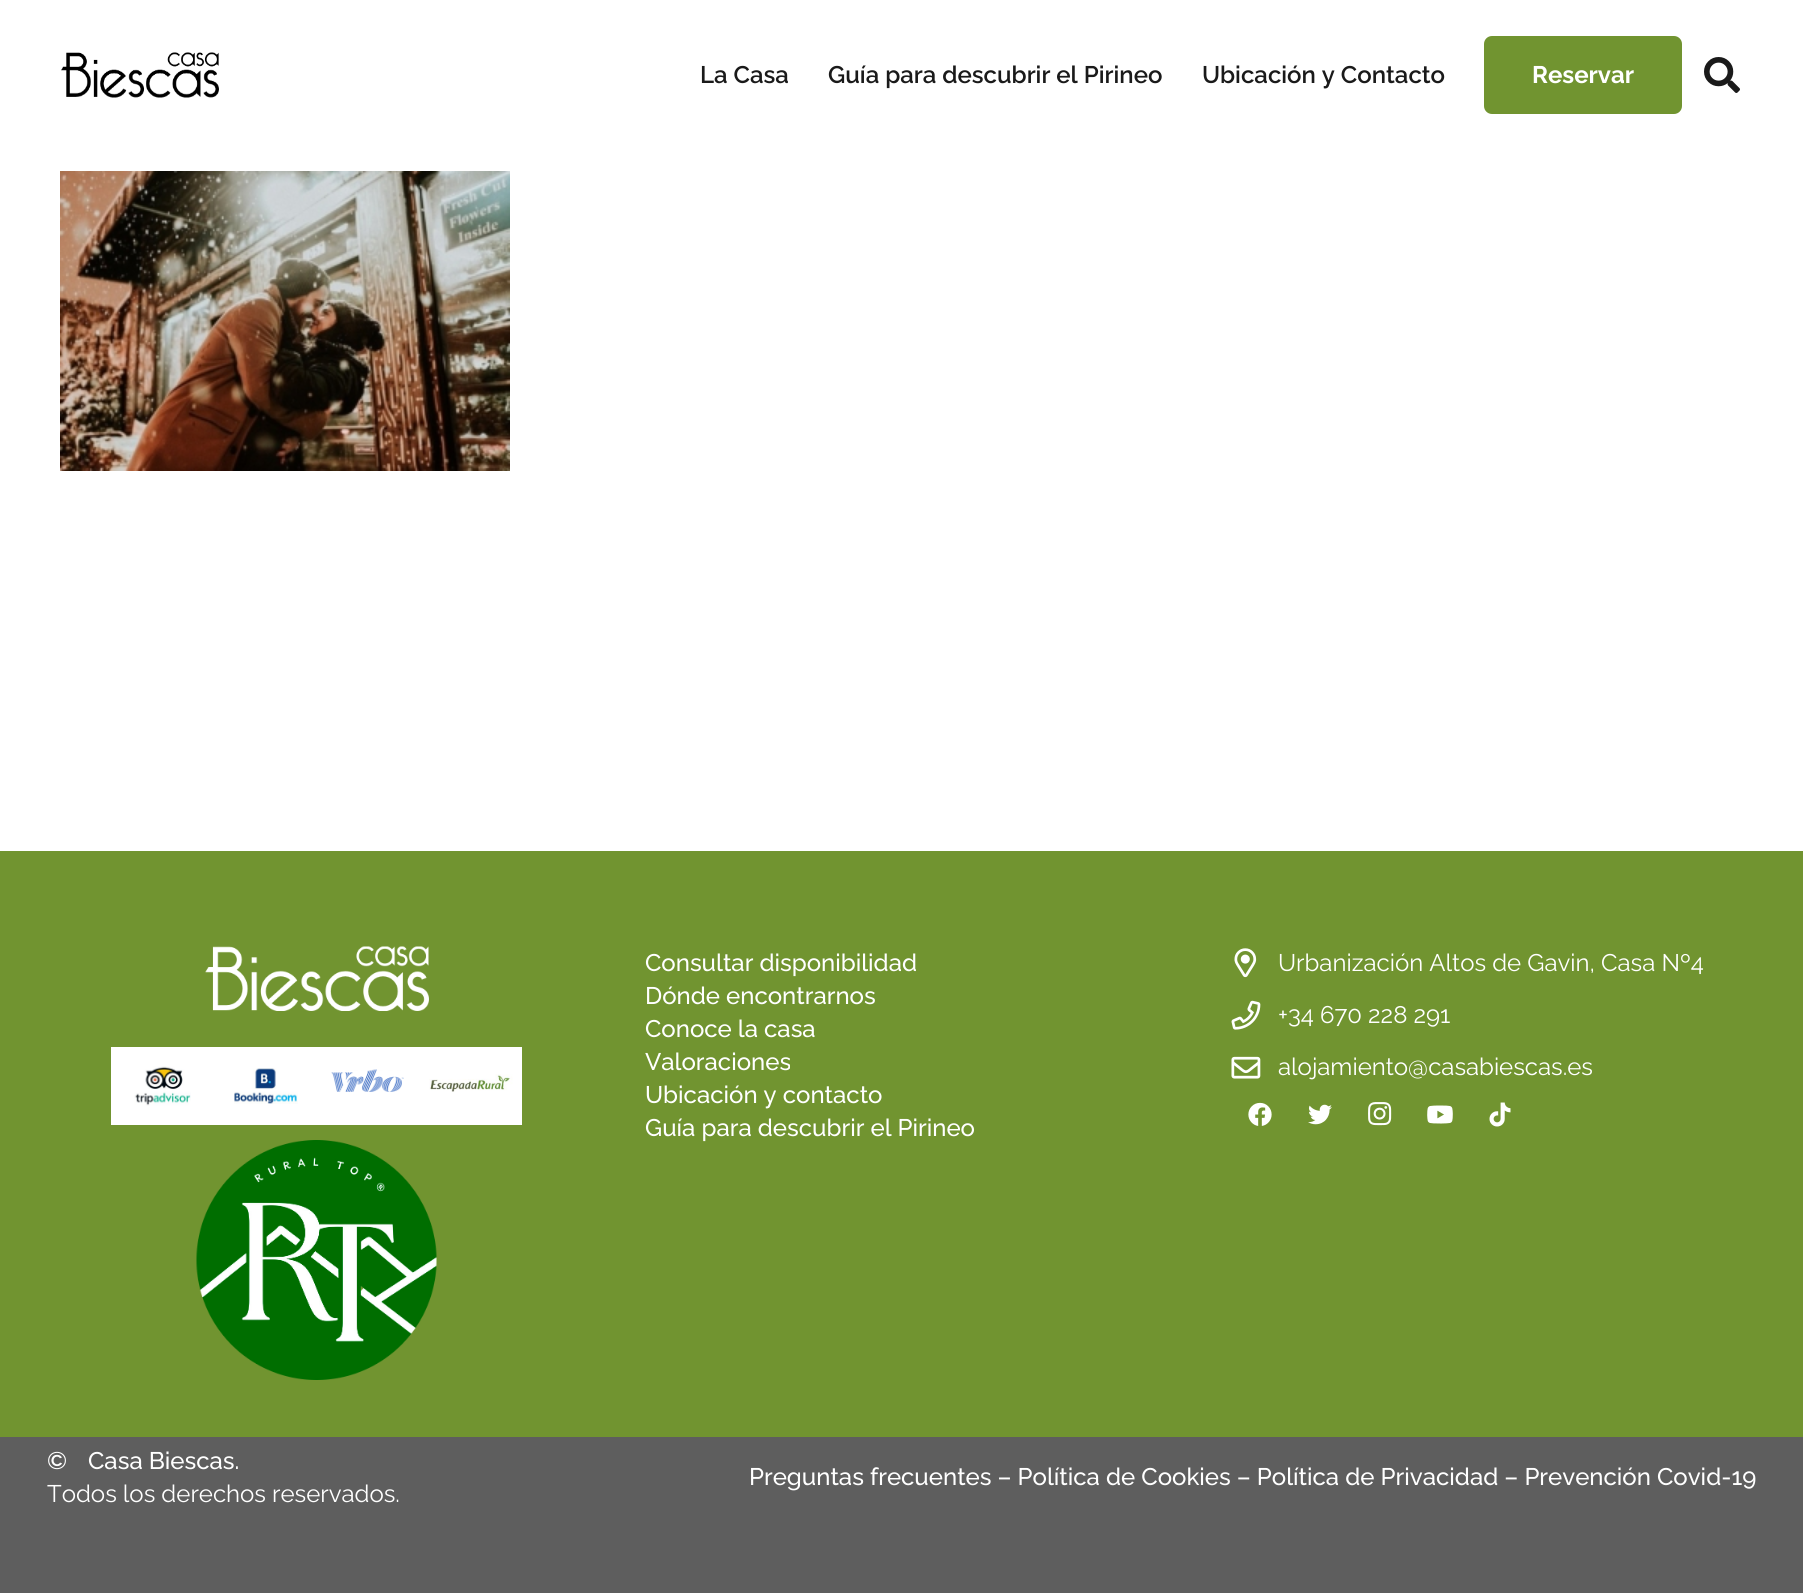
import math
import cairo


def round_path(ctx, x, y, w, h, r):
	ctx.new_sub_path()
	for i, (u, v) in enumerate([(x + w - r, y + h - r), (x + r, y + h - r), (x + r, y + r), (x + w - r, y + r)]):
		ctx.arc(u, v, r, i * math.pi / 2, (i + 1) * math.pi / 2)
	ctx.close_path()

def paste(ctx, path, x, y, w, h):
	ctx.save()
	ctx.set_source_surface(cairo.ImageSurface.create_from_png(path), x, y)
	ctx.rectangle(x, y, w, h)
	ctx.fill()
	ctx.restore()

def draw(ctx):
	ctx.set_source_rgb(1, 1, 1)
	ctx.paint()
	paste(ctx, 'media/1.png', 61, 52, 158, 46)
	ctx.select_font_face('Raleway SemiBold')
	ctx.set_font_size(24)
	ctx.set_source_rgb(0.102, 0.102, 0.102)
	for x, y, s in [
		(700, 83, 'La Casa'),
		(828, 83, 'Guía para descubrir el Pirineo'),
		(1202, 83, 'Ubicación y Contacto'),
	]:
		ctx.move_to(x, y)
		ctx.show_text(s)
	ctx.set_source_rgb(0.443, 0.58, 0.188)
	round_path(ctx, 1484, 36, 198, 78, 8)
	ctx.fill()
	ctx.select_font_face('Raleway', cairo.FONT_SLANT_NORMAL, cairo.FONT_WEIGHT_BOLD)
	ctx.set_source_rgb(1, 1, 1)
	ctx.move_to(1532, 83)
	ctx.show_text('Reservar')
	paste(ctx, 'media/2.png', 1704, 57, 36, 36)
	paste(ctx, 'media/3.png', 60, 171, 450, 300)
	ctx.set_source_rgb(0.443, 0.58, 0.188)
	ctx.rectangle(0, 851, 1803, 586)
	ctx.fill()
	paste(ctx, 'media/4.png', 205, 946, 224, 65)
	ctx.set_source_rgb(1, 1, 1)
	ctx.rectangle(111, 1047, 411, 78)
	ctx.fill()
	paste(ctx, 'media/5.png', 134, 1066, 57, 40)
	paste(ctx, 'media/6.png', 234, 1068, 64, 36)
	paste(ctx, 'media/7.png', 331, 1069, 73, 23)
	paste(ctx, 'media/8.png', 429, 1074, 84, 18)
	paste(ctx, 'media/9.png', 196, 1140, 241, 240)
	ctx.select_font_face('Raleway Medium')
	for x, y, s in [
		(645, 971, 'Consultar disponibilidad'),
		(645, 1004, 'Dónde encontrarnos'),
		(645, 1037, 'Conoce la casa'),
		(645, 1070, 'Valoraciones'),
		(645, 1103, 'Ubicación y contacto'),
		(645, 1136, 'Guía para descubrir el Pirineo'),
	]:
		ctx.move_to(x, y)
		ctx.show_text(s)
	paste(ctx, 'media/10.png', 1234, 948, 23, 30)
	ctx.select_font_face('Raleway')
	ctx.move_to(1278, 971)
	ctx.show_text('Urbanización Altos de Gavin, Casa Nº4')
	paste(ctx, 'media/11.png', 1231, 1000, 30, 30)
	ctx.move_to(1278, 1023)
	ctx.show_text('+34 670 228 291')
	paste(ctx, 'media/12.png', 1231, 1056, 30, 23)
	ctx.move_to(1278, 1075)
	ctx.show_text('alojamiento@casabiescas.es')
	paste(ctx, 'media/13.png', 1248, 1102, 24, 24)
	paste(ctx, 'media/14.png', 1308, 1104, 24, 21)
	paste(ctx, 'media/15.png', 1368, 1102, 24, 24)
	paste(ctx, 'media/16.png', 1427, 1105, 26, 19)
	paste(ctx, 'media/17.png', 1489, 1102, 22, 25)
	ctx.set_source_rgb(0.369, 0.369, 0.369)
	ctx.rectangle(0, 1437, 1803, 156)
	ctx.fill()
	ctx.select_font_face('Raleway Medium')
	ctx.set_source_rgb(1, 1, 1)
	ctx.move_to(47, 1469)
	ctx.show_text('©')
	ctx.move_to(88, 1469)
	ctx.show_text('Casa Biescas.')
	ctx.select_font_face('Raleway')
	ctx.move_to(47, 1502)
	ctx.show_text('Todos los derechos reservados.')
	ctx.select_font_face('Raleway Medium')
	ctx.move_to(749, 1485)
	ctx.show_text('Preguntas frecuentes – Política de Cookies – Política de Privacidad – Prevención Covid-19')


surface = cairo.ImageSurface(cairo.FORMAT_RGB24, 1803, 1593)
ctx = cairo.Context(surface)
options = cairo.FontOptions()
options.set_hint_metrics(cairo.HINT_METRICS_OFF)
options.set_hint_style(cairo.HINT_STYLE_NONE)
ctx.set_font_options(options)
ctx.set_miter_limit(4)
draw(ctx)
surface.write_to_png('image.png')
